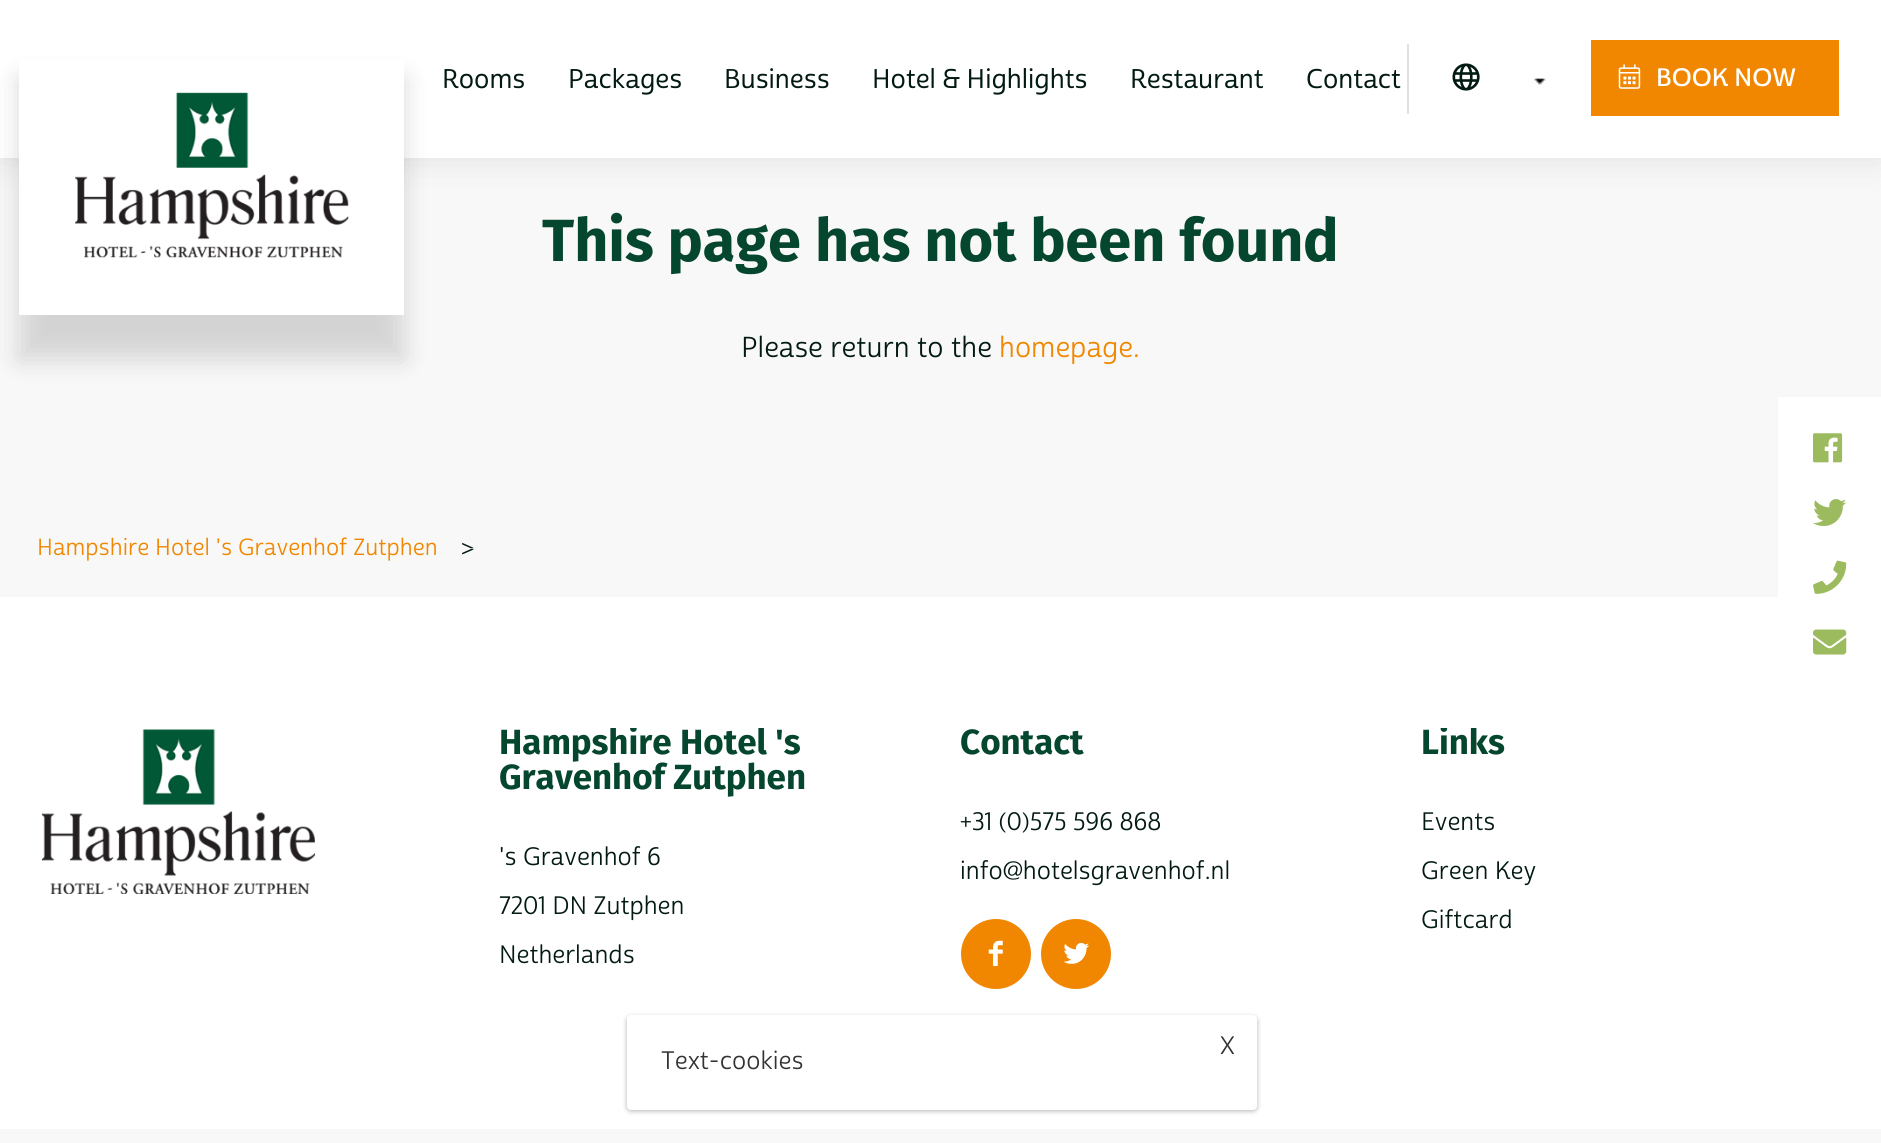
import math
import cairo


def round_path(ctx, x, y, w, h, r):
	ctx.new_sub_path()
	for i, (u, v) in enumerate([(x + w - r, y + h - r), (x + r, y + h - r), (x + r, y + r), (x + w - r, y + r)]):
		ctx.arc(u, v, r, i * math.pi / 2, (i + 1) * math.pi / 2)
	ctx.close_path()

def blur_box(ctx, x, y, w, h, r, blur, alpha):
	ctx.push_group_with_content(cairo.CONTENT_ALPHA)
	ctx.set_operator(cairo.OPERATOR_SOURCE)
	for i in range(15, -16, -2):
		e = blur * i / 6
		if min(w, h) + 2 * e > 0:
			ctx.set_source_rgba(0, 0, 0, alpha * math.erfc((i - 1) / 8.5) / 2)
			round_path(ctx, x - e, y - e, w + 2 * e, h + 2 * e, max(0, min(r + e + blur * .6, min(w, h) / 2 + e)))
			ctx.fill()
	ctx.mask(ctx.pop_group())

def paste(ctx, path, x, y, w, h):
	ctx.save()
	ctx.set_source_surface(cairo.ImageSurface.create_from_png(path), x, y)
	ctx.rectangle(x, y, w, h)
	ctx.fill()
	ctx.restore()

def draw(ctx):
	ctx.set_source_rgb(0.969, 0.969, 0.969)
	ctx.paint()
	ctx.set_source_rgb(0, 0, 0)
	blur_box(ctx, 0, 0, 1881, 158, 0, 17.5, 0.1)
	ctx.set_source_rgb(1, 1, 1)
	ctx.rectangle(0, 0, 1881, 158)
	ctx.fill()
	ctx.set_source_rgb(0, 0, 0)
	blur_box(ctx, 19, 79, 385, 280, 0, 13, 0.15)
	ctx.set_source_rgb(1, 1, 1)
	ctx.rectangle(19, 60, 385, 255)
	ctx.fill()
	paste(ctx, 'media/1.png', 75, 92, 274, 166)
	ctx.select_font_face('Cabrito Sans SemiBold')
	ctx.set_font_size(26.25)
	ctx.set_source_rgb(0.008, 0.102, 0.067)
	for x, y, s in [
		(442, 88, 'Rooms'),
		(568, 88, 'Packages'),
		(724, 88, 'Business'),
		(872, 88, 'Hotel & Highlights'),
		(1130, 88, 'Restaurant'),
		(1306, 88, 'Contact'),
	]:
		ctx.move_to(x, y)
		ctx.show_text(s)
	ctx.set_source_rgb(0.875, 0.875, 0.875)
	ctx.rectangle(1407, 44, 2, 70)
	ctx.fill()
	paste(ctx, 'media/2.png', 1452, 63, 28, 28)
	paste(ctx, 'media/3.png', 1534, 78, 12, 7)
	ctx.set_source_rgb(0.945, 0.529, 0)
	ctx.rectangle(1591, 40, 248, 76)
	ctx.fill()
	paste(ctx, 'media/4.png', 1618, 64, 23, 25)
	ctx.select_font_face('Cabrito Sans', cairo.FONT_SLANT_NORMAL, cairo.FONT_WEIGHT_BOLD)
	ctx.set_font_size(24.5)
	ctx.set_source_rgb(1, 1, 1)
	ctx.move_to(1656, 86)
	ctx.show_text('BOOK NOW')
	ctx.select_font_face('Fira Sans', cairo.FONT_SLANT_NORMAL, cairo.FONT_WEIGHT_BOLD)
	ctx.set_font_size(59.5)
	ctx.set_source_rgb(0.02, 0.275, 0.18)
	ctx.move_to(542, 261)
	ctx.show_text('This page has not been found')
	ctx.select_font_face('Cabrito Sans Medium')
	ctx.set_font_size(28)
	ctx.set_source_rgb(0.008, 0.102, 0.067)
	ctx.move_to(741, 357)
	ctx.show_text('Please return to the')
	ctx.set_source_rgb(0.945, 0.529, 0)
	ctx.move_to(999, 357)
	ctx.show_text('homepage.')
	ctx.set_font_size(22.75)
	ctx.move_to(37, 555)
	ctx.show_text('Hampshire Hotel \'s Gravenhof Zutphen')
	ctx.set_source_rgb(0.008, 0.102, 0.067)
	ctx.move_to(461, 555)
	ctx.show_text('>')
	ctx.set_source_rgb(1, 1, 1)
	ctx.rectangle(1778, 397, 103, 200)
	ctx.fill()
	paste(ctx, 'media/5.png', 1813, 433, 30, 30)
	paste(ctx, 'media/6.png', 1813, 499, 34, 27)
	paste(ctx, 'media/7.png', 1813, 560, 34, 34)
	ctx.rectangle(0, 597, 1881, 532)
	ctx.fill()
	paste(ctx, 'media/8.png', 1813, 629, 34, 26)
	paste(ctx, 'media/9.png', 42, 729, 273, 165)
	ctx.save()
	ctx.rectangle(19, 728, 1843, 270)
	ctx.clip()
	ctx.select_font_face('Fira Sans', cairo.FONT_SLANT_NORMAL, cairo.FONT_WEIGHT_BOLD)
	ctx.set_font_size(35)
	ctx.set_source_rgb(0.02, 0.275, 0.18)
	ctx.move_to(499, 754)
	ctx.show_text('Hampshire Hotel \'s')
	ctx.restore()
	ctx.select_font_face('Fira Sans', cairo.FONT_SLANT_NORMAL, cairo.FONT_WEIGHT_BOLD)
	ctx.set_font_size(35)
	ctx.set_source_rgb(0.02, 0.275, 0.18)
	ctx.move_to(499, 789)
	ctx.show_text('Gravenhof Zutphen')
	ctx.select_font_face('Cabrito Sans Medium')
	ctx.set_font_size(24.5)
	ctx.set_source_rgb(0.008, 0.102, 0.067)
	for x, y, s in [
		(499, 865, '\'s Gravenhof 6'),
		(499, 914, '7201 DN Zutphen'),
		(499, 963, 'Netherlands'),
	]:
		ctx.move_to(x, y)
		ctx.show_text(s)
	ctx.select_font_face('Fira Sans', cairo.FONT_SLANT_NORMAL, cairo.FONT_WEIGHT_BOLD)
	ctx.set_font_size(35)
	ctx.set_source_rgb(0.02, 0.275, 0.18)
	ctx.move_to(960, 754)
	ctx.show_text('Contact')
	ctx.select_font_face('Cabrito Sans Medium')
	ctx.set_font_size(24.5)
	ctx.set_source_rgb(0.008, 0.102, 0.067)
	ctx.move_to(960, 830)
	ctx.show_text('+31 (0)575 596 868')
	ctx.move_to(960, 879)
	ctx.show_text('info@hotelsgravenhof.nl')
	ctx.set_source_rgb(0.945, 0.529, 0)
	ctx.new_path()
	ctx.arc(996, 954, 35, 0, 2 * math.pi)
	ctx.fill()
	paste(ctx, 'media/10.png', 988, 940, 15, 26)
	ctx.arc(1076, 954, 35, 0, 2 * math.pi)
	ctx.fill()
	paste(ctx, 'media/11.png', 1063, 942, 26, 22)
	ctx.save()
	ctx.rectangle(19, 728, 1843, 270)
	ctx.clip()
	ctx.select_font_face('Fira Sans', cairo.FONT_SLANT_NORMAL, cairo.FONT_WEIGHT_BOLD)
	ctx.set_font_size(35)
	ctx.set_source_rgb(0.02, 0.275, 0.18)
	ctx.move_to(1421, 754)
	ctx.show_text('Links')
	ctx.restore()
	ctx.set_source_rgb(0.008, 0.102, 0.067)
	for x, y, s in [
		(1421, 830, 'Events'),
		(1421, 879, 'Green Key'),
		(1421, 928, 'Giftcard'),
	]:
		ctx.move_to(x, y)
		ctx.show_text(s)
	ctx.set_source_rgb(0, 0, 0)
	blur_box(ctx, 627, 1017, 630, 94, 4, 2.5, 0.3)
	ctx.set_source_rgb(1, 1, 1)
	round_path(ctx, 627, 1015, 630, 95, 4)
	ctx.fill()
	ctx.set_source_rgb(0.2, 0.2, 0.2)
	ctx.move_to(1220, 1054)
	ctx.show_text('X')
	ctx.move_to(661, 1069)
	ctx.show_text('Text-cookies')


surface = cairo.ImageSurface(cairo.FORMAT_RGB24, 1881, 1143)
ctx = cairo.Context(surface)
options = cairo.FontOptions()
options.set_hint_metrics(cairo.HINT_METRICS_OFF)
options.set_hint_style(cairo.HINT_STYLE_NONE)
ctx.set_font_options(options)
ctx.set_miter_limit(4)
draw(ctx)
surface.write_to_png('image.png')
